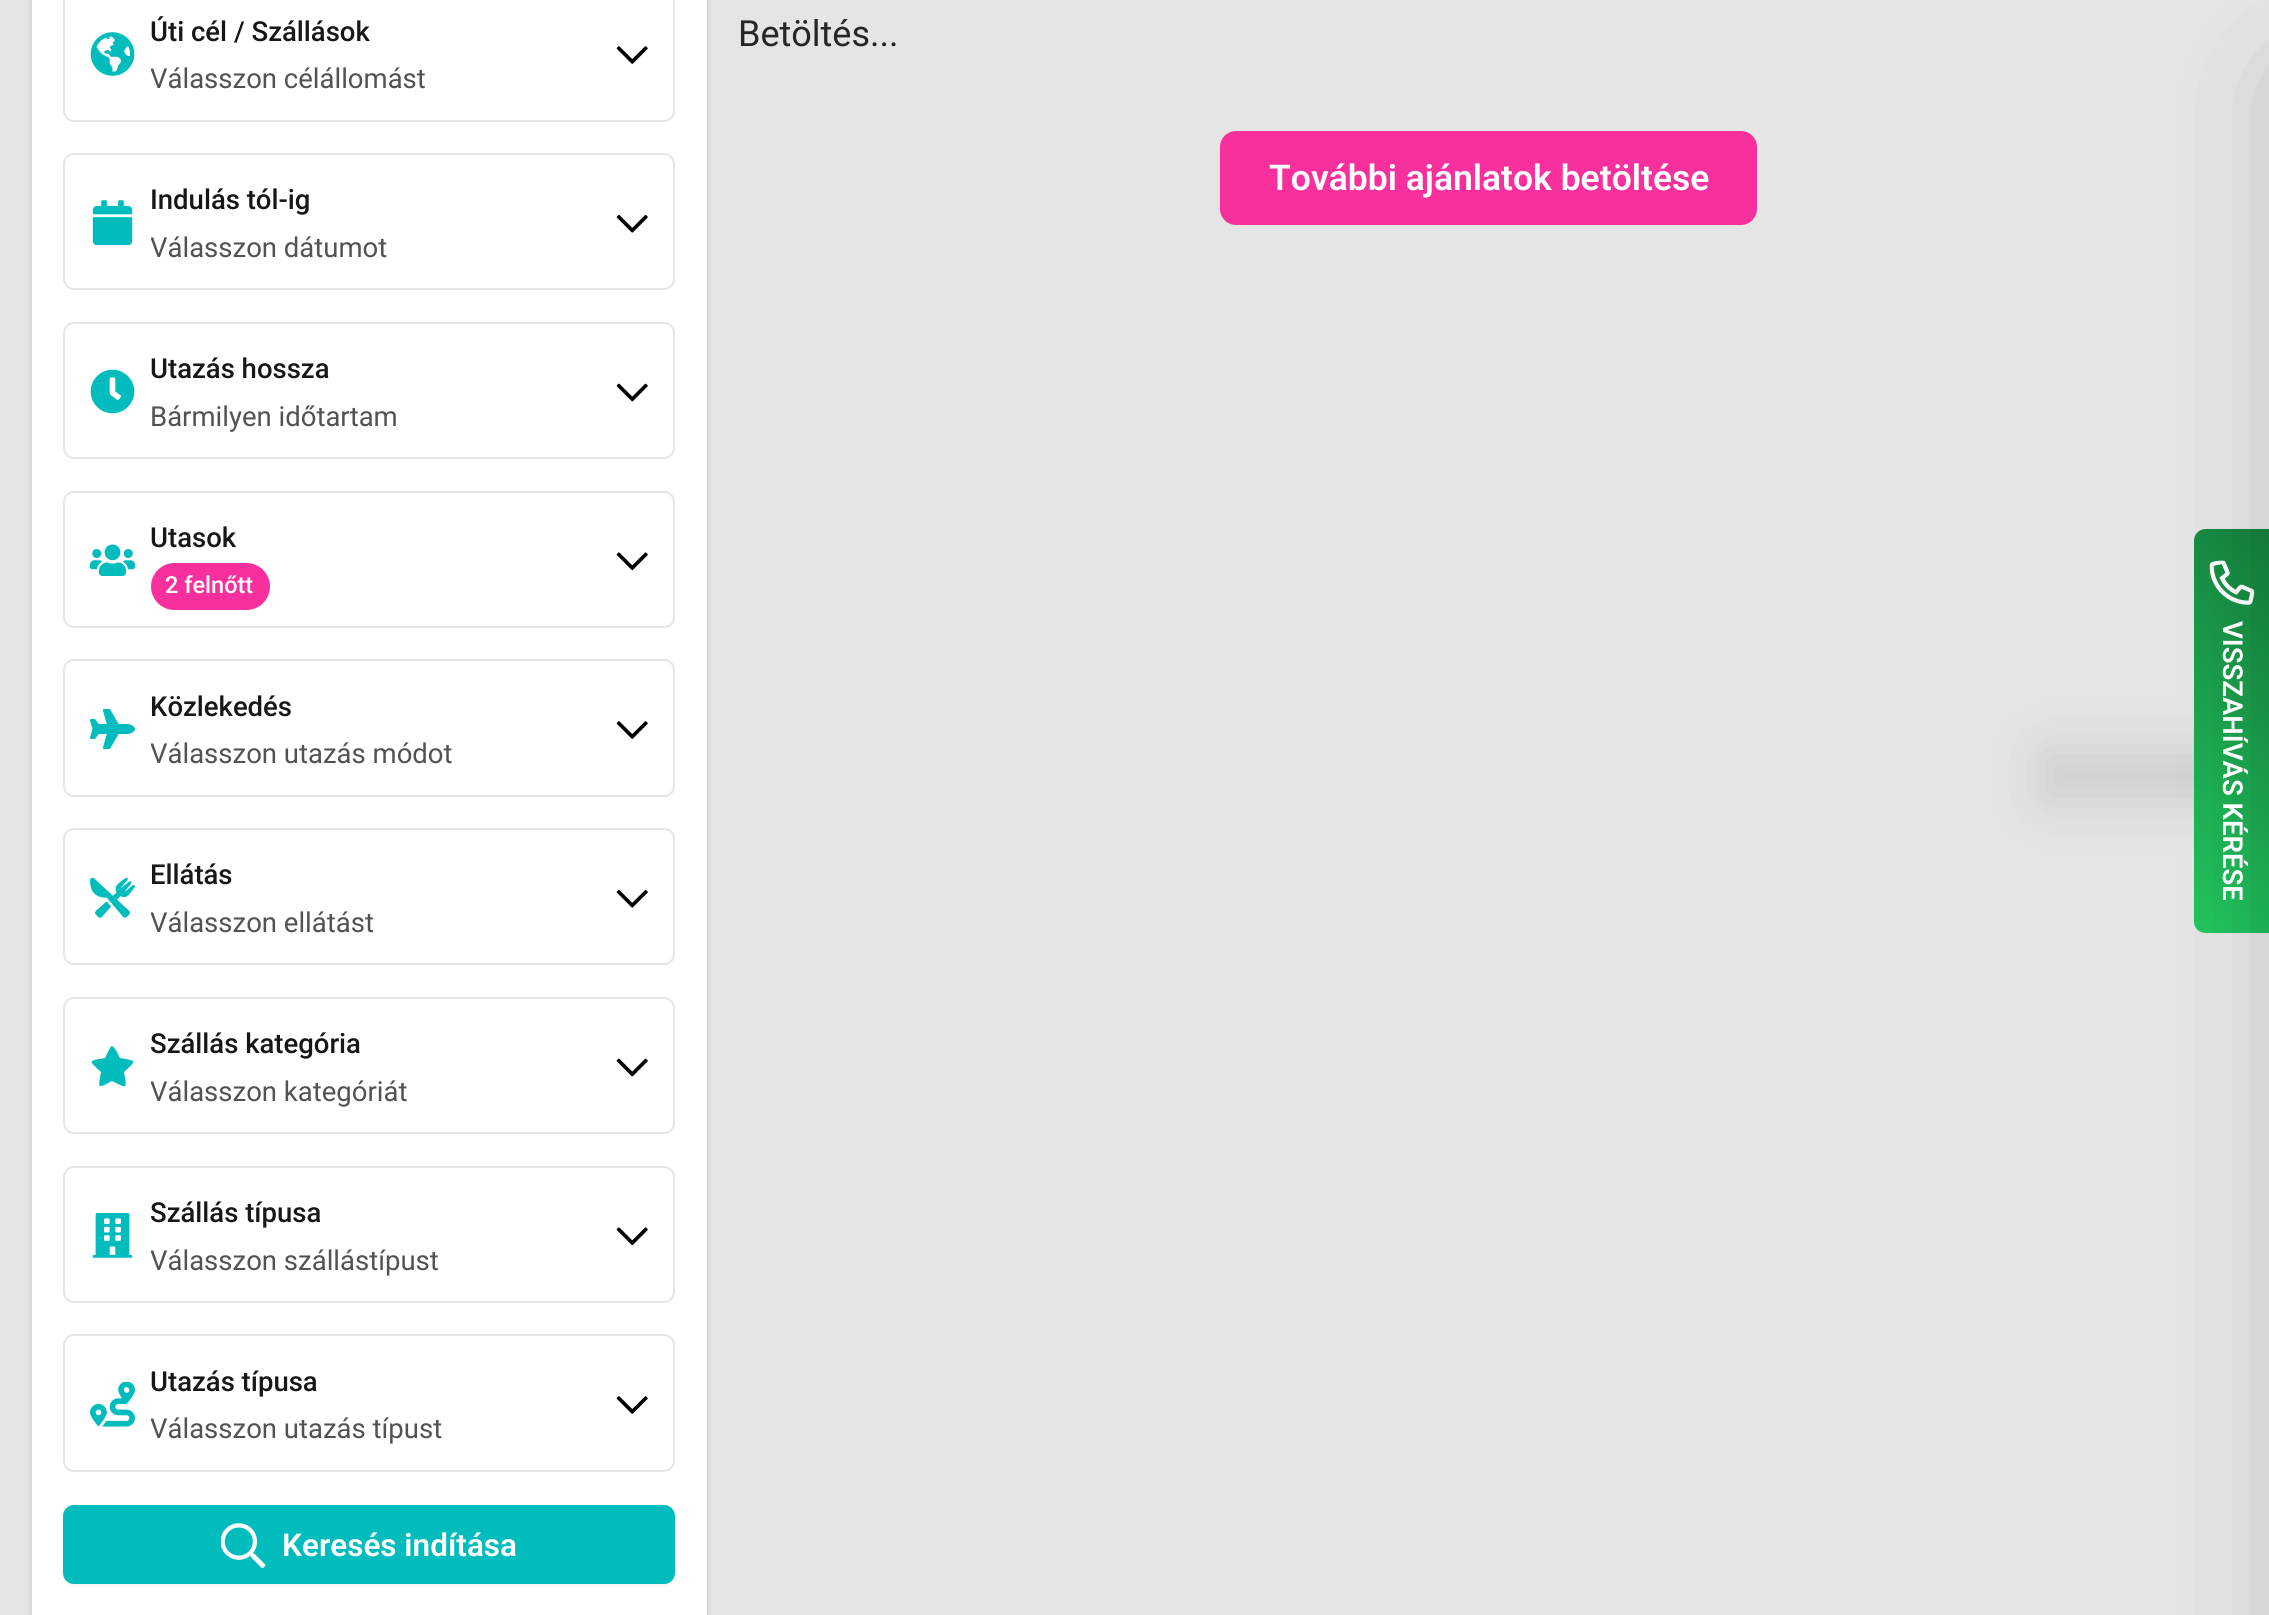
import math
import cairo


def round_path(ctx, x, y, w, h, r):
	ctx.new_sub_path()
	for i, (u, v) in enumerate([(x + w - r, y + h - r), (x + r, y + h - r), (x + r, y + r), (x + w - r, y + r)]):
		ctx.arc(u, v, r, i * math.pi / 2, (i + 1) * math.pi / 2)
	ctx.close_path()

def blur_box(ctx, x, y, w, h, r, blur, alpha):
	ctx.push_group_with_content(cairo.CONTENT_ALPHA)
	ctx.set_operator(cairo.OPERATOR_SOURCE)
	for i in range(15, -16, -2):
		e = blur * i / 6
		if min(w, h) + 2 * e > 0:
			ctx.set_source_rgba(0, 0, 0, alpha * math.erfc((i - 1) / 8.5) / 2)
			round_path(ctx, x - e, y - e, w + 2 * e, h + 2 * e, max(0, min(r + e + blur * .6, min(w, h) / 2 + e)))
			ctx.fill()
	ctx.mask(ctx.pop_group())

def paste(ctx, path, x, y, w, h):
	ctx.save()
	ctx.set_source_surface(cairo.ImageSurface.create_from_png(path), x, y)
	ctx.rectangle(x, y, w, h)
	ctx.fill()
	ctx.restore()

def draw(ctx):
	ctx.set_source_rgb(0.898, 0.898, 0.898)
	ctx.paint()
	ctx.set_source_rgb(0, 0, 0)
	blur_box(ctx, 32, -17, 675, 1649, 11, 2, 0.06)
	blur_box(ctx, 32, -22, 675, 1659, 11, 3.5, 0.1)
	ctx.set_source_rgb(1, 1, 1)
	ctx.rectangle(32, 0, 675, 1615)
	ctx.fill()
	round_path(ctx, 64, -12, 610, 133, 10)
	ctx.set_source_rgb(0.898, 0.898, 0.898)
	ctx.stroke()
	paste(ctx, 'media/1.png', 90, 32, 45, 44)
	ctx.select_font_face('Roboto Medium')
	ctx.set_font_size(27.5)
	ctx.set_source_rgb(0.09, 0.09, 0.09)
	ctx.move_to(150, 41)
	ctx.show_text('Úti cél / Szállások')
	ctx.save()
	ctx.rectangle(151, 2, 448, 102)
	ctx.clip()
	ctx.select_font_face('Roboto')
	ctx.set_source_rgb(0.322, 0.322, 0.322)
	ctx.move_to(150, 88)
	ctx.show_text('Válasszon célállomást')
	ctx.restore()
	paste(ctx, 'media/2.png', 616, 46, 32, 18)
	round_path(ctx, 64, 154, 610, 135, 10)
	ctx.set_source_rgb(0.898, 0.898, 0.898)
	ctx.stroke()
	paste(ctx, 'media/3.png', 92, 200, 41, 45)
	ctx.set_source_rgb(0.09, 0.09, 0.09)
	ctx.move_to(150, 209)
	ctx.show_text('Indulás tól-ig')
	ctx.save()
	ctx.rectangle(151, 171, 448, 101)
	ctx.clip()
	ctx.select_font_face('Roboto')
	ctx.set_source_rgb(0.322, 0.322, 0.322)
	ctx.move_to(150, 257)
	ctx.show_text('Válasszon dátumot')
	ctx.restore()
	paste(ctx, 'media/4.png', 616, 214, 32, 19)
	round_path(ctx, 64, 323, 610, 135, 10)
	ctx.set_source_rgb(0.898, 0.898, 0.898)
	ctx.stroke()
	paste(ctx, 'media/5.png', 90, 369, 45, 45)
	ctx.set_source_rgb(0.09, 0.09, 0.09)
	ctx.move_to(150, 378)
	ctx.show_text('Utazás hossza')
	ctx.select_font_face('Roboto')
	ctx.set_source_rgb(0.322, 0.322, 0.322)
	ctx.move_to(150, 426)
	ctx.show_text('Bármilyen időtartam')
	paste(ctx, 'media/6.png', 616, 383, 32, 19)
	round_path(ctx, 64, 492, 610, 135, 10)
	ctx.set_source_rgb(0.898, 0.898, 0.898)
	ctx.stroke()
	paste(ctx, 'media/7.png', 90, 544, 45, 32)
	ctx.select_font_face('Roboto Medium')
	ctx.set_source_rgb(0.09, 0.09, 0.09)
	ctx.move_to(150, 547)
	ctx.show_text('Utasok')
	ctx.set_source_rgb(0.965, 0.188, 0.62)
	round_path(ctx, 151, 563, 119, 47, 23.5)
	ctx.fill()
	ctx.set_font_size(23.5)
	ctx.set_source_rgb(1, 1, 1)
	ctx.move_to(165, 593)
	ctx.show_text('2 felnőtt')
	paste(ctx, 'media/8.png', 616, 552, 32, 19)
	round_path(ctx, 64, 660, 610, 136, 10)
	ctx.set_source_rgb(0.898, 0.898, 0.898)
	ctx.stroke()
	paste(ctx, 'media/9.png', 90, 709, 45, 40)
	ctx.set_font_size(27.5)
	ctx.set_source_rgb(0.09, 0.09, 0.09)
	ctx.move_to(150, 716)
	ctx.show_text('Közlekedés')
	ctx.save()
	ctx.rectangle(151, 677, 448, 102)
	ctx.clip()
	ctx.select_font_face('Roboto')
	ctx.set_source_rgb(0.322, 0.322, 0.322)
	ctx.move_to(150, 763)
	ctx.show_text('Válasszon utazás módot')
	ctx.restore()
	paste(ctx, 'media/2.png', 616, 721, 32, 18)
	round_path(ctx, 64, 829, 610, 135, 10)
	ctx.set_source_rgb(0.898, 0.898, 0.898)
	ctx.stroke()
	paste(ctx, 'media/10.png', 90, 877, 45, 41)
	ctx.set_source_rgb(0.09, 0.09, 0.09)
	ctx.move_to(150, 884)
	ctx.show_text('Ellátás')
	ctx.save()
	ctx.rectangle(151, 846, 448, 101)
	ctx.clip()
	ctx.select_font_face('Roboto')
	ctx.set_source_rgb(0.322, 0.322, 0.322)
	ctx.move_to(150, 932)
	ctx.show_text('Válasszon ellátást')
	ctx.restore()
	paste(ctx, 'media/4.png', 616, 889, 32, 19)
	round_path(ctx, 64, 998, 610, 135, 10)
	ctx.set_source_rgb(0.898, 0.898, 0.898)
	ctx.stroke()
	ctx.set_source_rgb(0, 0.737, 0.741)
	ctx.new_path()
	ctx.move_to(110, 1048)
	ctx.line_to(105, 1058)
	ctx.curve_to(88, 1061, 88, 1060, 101, 1072)
	ctx.curve_to(98, 1089, 97, 1089, 112, 1081)
	ctx.curve_to(128, 1089, 127, 1089, 124, 1072)
	ctx.curve_to(137, 1060, 137, 1061, 120, 1058)
	ctx.curve_to(119, 1057, 113, 1041, 110, 1048)
	ctx.close_path()
	ctx.fill()
	ctx.set_source_rgb(0.09, 0.09, 0.09)
	ctx.move_to(150, 1053)
	ctx.show_text('Szállás kategória')
	ctx.save()
	ctx.rectangle(151, 1015, 448, 101)
	ctx.clip()
	ctx.select_font_face('Roboto')
	ctx.set_source_rgb(0.322, 0.322, 0.322)
	ctx.move_to(150, 1101)
	ctx.show_text('Válasszon kategóriát')
	ctx.restore()
	paste(ctx, 'media/6.png', 616, 1058, 32, 19)
	round_path(ctx, 64, 1167, 610, 135, 10)
	ctx.set_source_rgb(0.898, 0.898, 0.898)
	ctx.stroke()
	paste(ctx, 'media/11.png', 92, 1213, 41, 45)
	ctx.set_source_rgb(0.09, 0.09, 0.09)
	ctx.move_to(150, 1222)
	ctx.show_text('Szállás típusa')
	ctx.save()
	ctx.rectangle(151, 1184, 448, 101)
	ctx.clip()
	ctx.select_font_face('Roboto')
	ctx.set_source_rgb(0.322, 0.322, 0.322)
	ctx.move_to(150, 1270)
	ctx.show_text('Válasszon szállástípust')
	ctx.restore()
	paste(ctx, 'media/8.png', 616, 1227, 32, 19)
	round_path(ctx, 64, 1335, 610, 136, 10)
	ctx.set_source_rgb(0.898, 0.898, 0.898)
	ctx.stroke()
	paste(ctx, 'media/12.png', 90, 1382, 45, 45)
	ctx.set_source_rgb(0.09, 0.09, 0.09)
	ctx.move_to(150, 1391)
	ctx.show_text('Utazás típusa')
	ctx.save()
	ctx.rectangle(151, 1352, 448, 102)
	ctx.clip()
	ctx.select_font_face('Roboto')
	ctx.set_source_rgb(0.322, 0.322, 0.322)
	ctx.move_to(150, 1438)
	ctx.show_text('Válasszon utazás típust')
	ctx.restore()
	paste(ctx, 'media/2.png', 616, 1396, 32, 18)
	ctx.set_source_rgb(0, 0, 0)
	blur_box(ctx, 63, 1508, 612, 78, 11, 2, 0.05)
	ctx.set_source_rgb(0, 0.737, 0.741)
	round_path(ctx, 63, 1505, 612, 79, 11)
	ctx.fill()
	paste(ctx, 'media/13.png', 221, 1523, 45, 45)
	ctx.select_font_face('Roboto SemiBold')
	ctx.set_font_size(31.5)
	ctx.set_source_rgb(1, 1, 1)
	ctx.move_to(282, 1556)
	ctx.show_text('Keresés indítása')
	ctx.select_font_face('Roboto')
	ctx.set_font_size(36)
	ctx.set_source_rgb(0.149, 0.149, 0.149)
	ctx.move_to(738, 46)
	ctx.show_text('Betöltés...')
	ctx.set_source_rgb(0.965, 0.188, 0.62)
	round_path(ctx, 1221, 132, 535, 92, 15)
	ctx.fill_preserve()
	ctx.stroke()
	ctx.select_font_face('Roboto SemiBold')
	ctx.set_font_size(35.5)
	ctx.set_source_rgb(1, 1, 1)
	ctx.move_to(1269, 190)
	ctx.show_text('További ajánlatok betöltése')
	ctx.set_source_rgb(0, 0, 0)
	blur_box(ctx, 2041, 749, 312, 54, 0, 28, 0.1)
	gradient = cairo.LinearGradient(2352, 611, 2112, 851)
	gradient.add_color_stop_rgba(0, 0.082, 0.502, 0.239, 1)
	gradient.add_color_stop_rgba(1, 0.133, 0.773, 0.369, 1)
	ctx.set_source(gradient)
	ctx.new_path()
	ctx.move_to(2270, 529)
	ctx.line_to(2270, 933)
	ctx.line_to(2206, 933)
	ctx.curve_to(2199, 933, 2194, 928, 2194, 922)
	ctx.line_to(2194, 541)
	ctx.curve_to(2194, 534, 2199, 529, 2206, 529)
	ctx.close_path()
	ctx.fill()
	paste(ctx, 'media/14.png', 2209, 560, 46, 45)
	ctx.set_source_rgb(0, 0, 0)
	blur_box(ctx, 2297, 83, 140, 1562, 0, 56, 0.25)
	ctx.set_font_size(27.5)
	ctx.set_source_rgb(1, 1, 1)
	ctx.save()
	ctx.translate(2223, 621)
	ctx.rotate(90 * math.pi / 180)
	ctx.move_to(0, 0)
	ctx.show_text('VISSZAHÍVÁS KÉRÉSE')
	ctx.restore()


surface = cairo.ImageSurface(cairo.FORMAT_RGB24, 2269, 1615)
ctx = cairo.Context(surface)
options = cairo.FontOptions()
options.set_hint_metrics(cairo.HINT_METRICS_OFF)
options.set_hint_style(cairo.HINT_STYLE_NONE)
ctx.set_font_options(options)
ctx.set_miter_limit(4)
draw(ctx)
surface.write_to_png('image.png')
